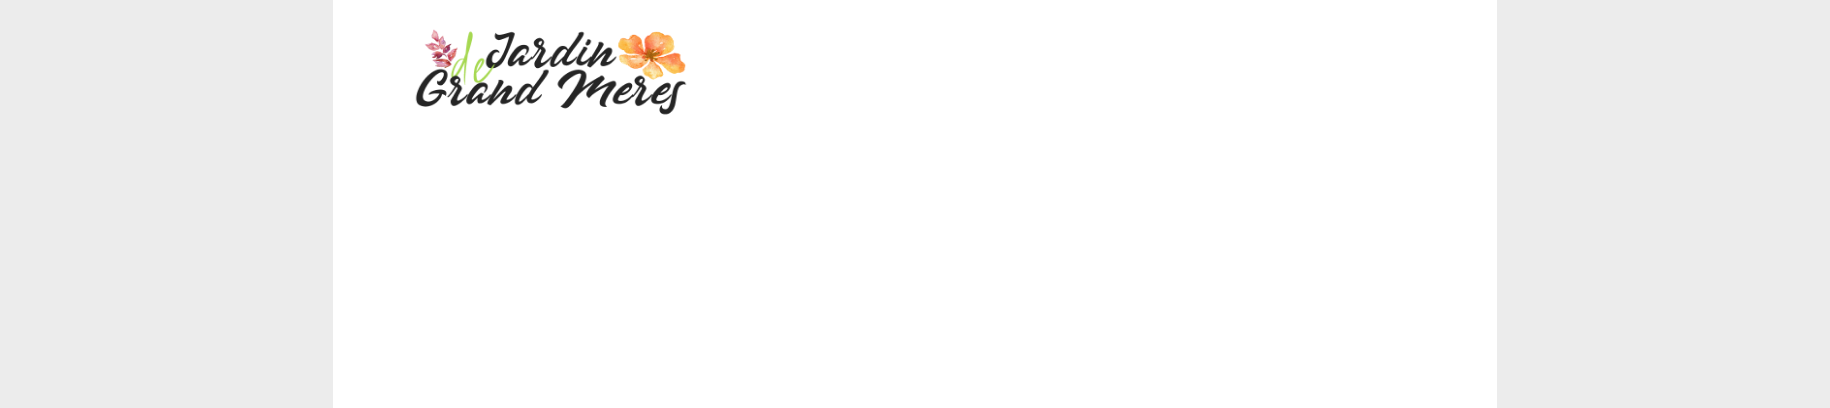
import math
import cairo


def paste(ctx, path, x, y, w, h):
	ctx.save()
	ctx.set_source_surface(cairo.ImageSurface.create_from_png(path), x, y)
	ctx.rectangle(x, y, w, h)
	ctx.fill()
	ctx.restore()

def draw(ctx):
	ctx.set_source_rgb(0.922, 0.922, 0.922)
	ctx.paint()
	ctx.set_source_rgb(1, 1, 1)
	ctx.rectangle(333, 0, 1164, 408)
	ctx.fill()
	paste(ctx, 'media/1.png', 415, 29, 272, 86)


surface = cairo.ImageSurface(cairo.FORMAT_RGB24, 1830, 408)
ctx = cairo.Context(surface)
options = cairo.FontOptions()
options.set_hint_metrics(cairo.HINT_METRICS_OFF)
options.set_hint_style(cairo.HINT_STYLE_NONE)
ctx.set_font_options(options)
ctx.set_miter_limit(4)
draw(ctx)
surface.write_to_png('image.png')
